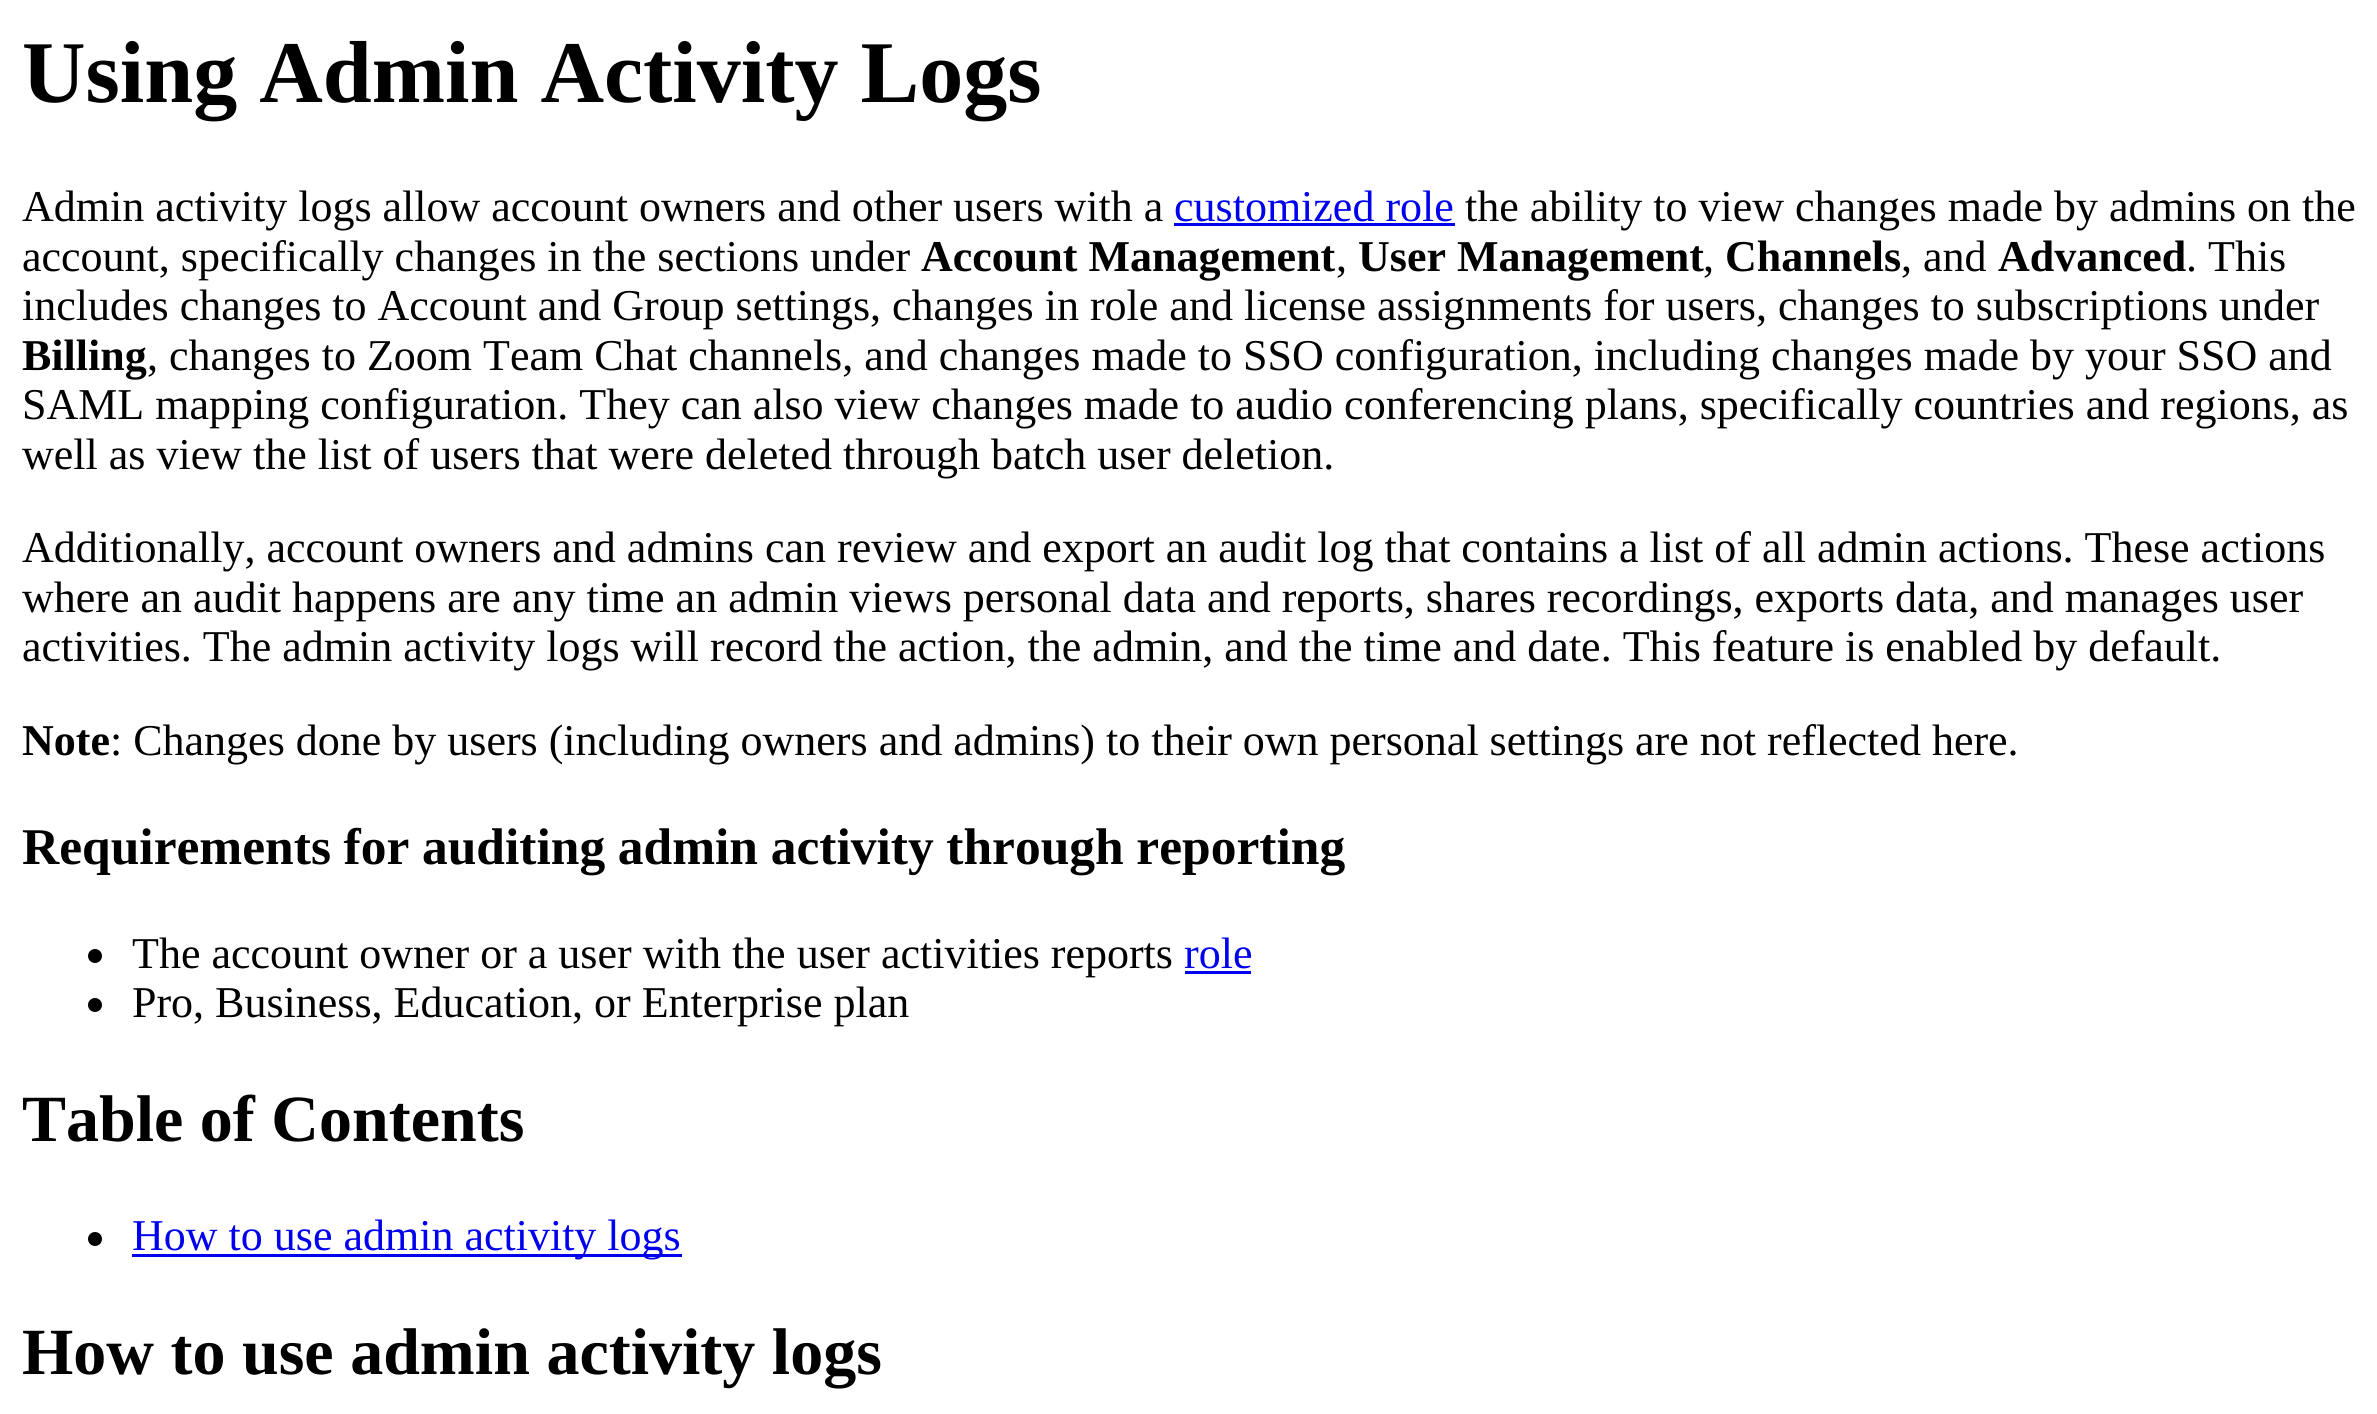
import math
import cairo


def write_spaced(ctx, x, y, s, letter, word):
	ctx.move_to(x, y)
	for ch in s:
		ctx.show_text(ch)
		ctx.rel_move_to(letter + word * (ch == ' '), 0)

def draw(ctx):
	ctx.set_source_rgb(1, 1, 1)
	ctx.paint()
	ctx.select_font_face('Liberation Serif', cairo.FONT_SLANT_NORMAL, cairo.FONT_WEIGHT_BOLD)
	ctx.set_font_size(88)
	ctx.set_source_rgb(0, 0, 0)
	ctx.move_to(22, 102)
	ctx.show_text('Using Admin Activity Logs')
	ctx.select_font_face('Liberation Serif')
	ctx.set_font_size(44)
	ctx.move_to(22, 221)
	ctx.show_text('Admin activity logs allow account owners and other users with a')
	ctx.set_source_rgb(0, 0, 0.933)
	ctx.move_to(1174, 221)
	ctx.show_text('customized role')
	ctx.rectangle(1174, 223, 281, 3)
	ctx.fill()
	ctx.set_source_rgb(0, 0, 0)
	ctx.move_to(1465, 221)
	ctx.show_text('the ability to view changes made by admins on the')
	ctx.move_to(22, 271)
	ctx.show_text('account, specifically changes in the sections under')
	ctx.select_font_face('Liberation Serif', cairo.FONT_SLANT_NORMAL, cairo.FONT_WEIGHT_BOLD)
	ctx.move_to(921, 271)
	ctx.show_text('Account Management')
	ctx.select_font_face('Liberation Serif')
	ctx.move_to(1336, 271)
	ctx.show_text(',')
	ctx.select_font_face('Liberation Serif', cairo.FONT_SLANT_NORMAL, cairo.FONT_WEIGHT_BOLD)
	ctx.move_to(1358, 271)
	ctx.show_text('User Management')
	ctx.select_font_face('Liberation Serif')
	ctx.move_to(1703, 271)
	ctx.show_text(',')
	ctx.select_font_face('Liberation Serif', cairo.FONT_SLANT_NORMAL, cairo.FONT_WEIGHT_BOLD)
	ctx.move_to(1725, 271)
	ctx.show_text('Channels')
	ctx.select_font_face('Liberation Serif')
	ctx.move_to(1901, 271)
	ctx.show_text(', and')
	ctx.select_font_face('Liberation Serif', cairo.FONT_SLANT_NORMAL, cairo.FONT_WEIGHT_BOLD)
	ctx.move_to(1998, 271)
	ctx.show_text('Advanced')
	ctx.select_font_face('Liberation Serif')
	ctx.move_to(2186, 271)
	ctx.show_text('. This')
	ctx.move_to(22, 320)
	ctx.show_text('includes changes to Account and Group settings, changes in role and license assignments for users, changes to subscriptions under')
	ctx.select_font_face('Liberation Serif', cairo.FONT_SLANT_NORMAL, cairo.FONT_WEIGHT_BOLD)
	ctx.move_to(22, 370)
	ctx.show_text('Billing')
	ctx.select_font_face('Liberation Serif')
	for x, y, s in [
		(147, 370, ', changes to Zoom Team Chat channels, and changes made to SSO configuration, including changes made by your SSO and'),
		(22, 419, 'SAML mapping configuration. They can also view changes made to audio conferencing plans, specifically countries and regions, as'),
		(22, 469, 'well as view the list of users that were deleted through batch user deletion.'),
		(22, 562, 'Additionally, account owners and admins can review and export an audit log that contains a list of all admin actions. These actions'),
		(22, 612, 'where an audit happens are any time an admin views personal data and reports, shares recordings, exports data, and manages user'),
		(22, 661, 'activities. The admin activity logs will record the action, the admin, and the time and date. This feature is enabled by default.'),
	]:
		ctx.move_to(x, y)
		ctx.show_text(s)
	ctx.select_font_face('Liberation Serif', cairo.FONT_SLANT_NORMAL, cairo.FONT_WEIGHT_BOLD)
	ctx.move_to(22, 755)
	ctx.show_text('Note')
	ctx.select_font_face('Liberation Serif')
	ctx.move_to(110, 755)
	ctx.show_text(': Changes done by users (including owners and admins) to their own personal settings are not reflected here.')
	ctx.select_font_face('Liberation Serif', cairo.FONT_SLANT_NORMAL, cairo.FONT_WEIGHT_BOLD)
	ctx.set_font_size(51.5)
	write_spaced(ctx, 22, 864, 'Requirements for auditing admin activity through reporting', 0, -0.25)
	ctx.new_path()
	ctx.arc(95, 956, 7, 0, 2 * math.pi)
	ctx.fill()
	ctx.select_font_face('Liberation Serif')
	ctx.set_font_size(44)
	ctx.move_to(132, 968)
	ctx.show_text('The account owner or a user with the user activities reports')
	ctx.set_source_rgb(0, 0, 0.933)
	ctx.move_to(1184, 968)
	ctx.show_text('role')
	ctx.rectangle(1185, 971, 66, 3)
	ctx.fill()
	ctx.set_source_rgb(0, 0, 0)
	ctx.arc(95, 1005, 7, 0, 2 * math.pi)
	ctx.fill()
	ctx.move_to(132, 1017)
	ctx.show_text('Pro, Business, Education, or Enterprise plan')
	ctx.select_font_face('Liberation Serif', cairo.FONT_SLANT_NORMAL, cairo.FONT_WEIGHT_BOLD)
	ctx.set_font_size(66)
	ctx.move_to(22, 1141)
	ctx.show_text('Table of Contents')
	ctx.new_path()
	ctx.arc(95, 1239, 7, 0, 2 * math.pi)
	ctx.fill()
	ctx.set_source_rgb(0, 0, 0.933)
	ctx.rectangle(132, 1254, 550, 3)
	ctx.fill()
	ctx.select_font_face('Liberation Serif')
	ctx.set_font_size(44)
	ctx.move_to(132, 1250)
	ctx.show_text('How to use admin activity logs')
	ctx.select_font_face('Liberation Serif', cairo.FONT_SLANT_NORMAL, cairo.FONT_WEIGHT_BOLD)
	ctx.set_font_size(66)
	ctx.set_source_rgb(0, 0, 0)
	ctx.move_to(22, 1374)
	ctx.show_text('How to use admin activity logs')


surface = cairo.ImageSurface(cairo.FORMAT_RGB24, 2377, 1414)
ctx = cairo.Context(surface)
options = cairo.FontOptions()
options.set_hint_metrics(cairo.HINT_METRICS_OFF)
options.set_hint_style(cairo.HINT_STYLE_NONE)
ctx.set_font_options(options)
ctx.set_miter_limit(4)
draw(ctx)
surface.write_to_png('image.png')
